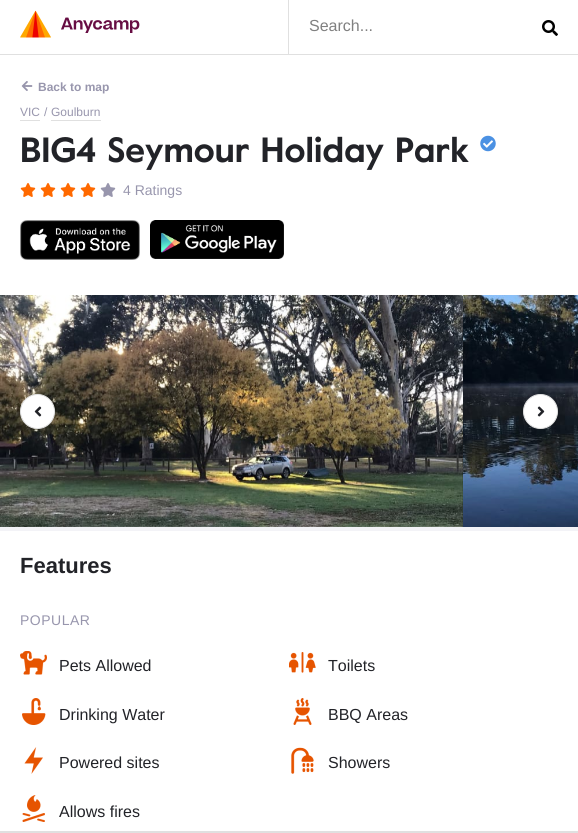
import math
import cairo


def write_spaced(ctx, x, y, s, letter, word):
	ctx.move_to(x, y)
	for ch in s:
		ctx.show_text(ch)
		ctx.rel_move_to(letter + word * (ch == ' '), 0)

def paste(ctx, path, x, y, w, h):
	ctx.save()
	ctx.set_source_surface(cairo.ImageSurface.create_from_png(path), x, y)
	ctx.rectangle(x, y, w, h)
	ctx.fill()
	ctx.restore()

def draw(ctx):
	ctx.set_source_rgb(1, 1, 1)
	ctx.paint()
	ctx.set_source_rgb(0.878, 0.878, 0.878)
	ctx.rectangle(0, 54, 578, 1)
	ctx.fill()
	ctx.rectangle(288, 0, 1, 54)
	ctx.fill()
	paste(ctx, 'media/1.png', 20, 10, 120, 28)
	ctx.select_font_face('Liberation Sans')
	ctx.set_font_size(16)
	ctx.set_source_rgb(0.502, 0.502, 0.502)
	ctx.move_to(309, 31)
	ctx.show_text('Search...')
	paste(ctx, 'media/2.png', 542, 20, 16, 16)
	paste(ctx, 'media/3.png', 21, 81, 12, 10)
	ctx.select_font_face('Liberation Sans', cairo.FONT_SLANT_NORMAL, cairo.FONT_WEIGHT_BOLD)
	ctx.set_font_size(12)
	ctx.set_source_rgb(0.596, 0.588, 0.678)
	ctx.move_to(38, 91)
	ctx.show_text('Back to map')
	ctx.set_source_rgb(0.878, 0.878, 0.878)
	ctx.rectangle(20, 120, 20, 1)
	ctx.fill()
	ctx.select_font_face('Liberation Sans')
	ctx.set_source_rgb(0.596, 0.588, 0.678)
	ctx.move_to(20, 116)
	ctx.show_text('VIC')
	ctx.move_to(44, 116)
	ctx.show_text('/')
	ctx.set_source_rgb(0.878, 0.878, 0.878)
	ctx.rectangle(51, 120, 50, 1)
	ctx.fill()
	ctx.set_source_rgb(0.596, 0.588, 0.678)
	ctx.move_to(51, 116)
	ctx.show_text('Goulburn')
	ctx.select_font_face('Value', cairo.FONT_SLANT_NORMAL, cairo.FONT_WEIGHT_BOLD)
	ctx.set_font_size(35)
	ctx.set_source_rgb(0.133, 0.137, 0.157)
	ctx.move_to(20, 162)
	ctx.show_text('BIG4 Seymour Holiday Park')
	paste(ctx, 'media/4.png', 480, 135, 16, 17)
	paste(ctx, 'media/5.png', 20, 183, 16, 14)
	paste(ctx, 'media/5.png', 40, 183, 16, 14)
	paste(ctx, 'media/5.png', 60, 183, 16, 14)
	paste(ctx, 'media/5.png', 80, 183, 16, 14)
	paste(ctx, 'media/6.png', 100, 183, 16, 14)
	ctx.select_font_face('Liberation Sans')
	ctx.set_font_size(14)
	ctx.set_source_rgb(0.596, 0.588, 0.678)
	ctx.move_to(123, 195)
	ctx.show_text('4 Ratings')
	paste(ctx, 'media/7.png', 20, 220, 120, 40)
	paste(ctx, 'media/8.png', 150, 220, 134, 39)
	paste(ctx, 'media/9.png', 0, 295, 463, 232)
	paste(ctx, 'media/10.png', 463, 295, 115, 232)
	ctx.set_source_rgb(1, 1, 1)
	ctx.arc(37.5, 411.5, 17, 0, 2 * math.pi)
	ctx.fill_preserve()
	ctx.set_source_rgb(0.878, 0.878, 0.878)
	ctx.set_line_width(1)
	ctx.stroke()
	paste(ctx, 'media/11.png', 34, 406, 8, 11)
	ctx.set_source_rgb(1, 1, 1)
	ctx.arc(540.5, 411.5, 17, 0, 2 * math.pi)
	ctx.fill_preserve()
	ctx.set_source_rgb(0.878, 0.878, 0.878)
	ctx.stroke()
	paste(ctx, 'media/12.png', 537, 406, 8, 11)
	ctx.set_source_rgb(0.953, 0.953, 0.965)
	ctx.rectangle(0, 527, 578, 4)
	ctx.fill()
	ctx.select_font_face('Liberation Sans', cairo.FONT_SLANT_NORMAL, cairo.FONT_WEIGHT_BOLD)
	ctx.set_font_size(22)
	ctx.set_source_rgb(0.133, 0.137, 0.157)
	ctx.move_to(20, 573)
	ctx.show_text('Features')
	ctx.select_font_face('Liberation Sans')
	ctx.set_font_size(14)
	ctx.set_source_rgb(0.596, 0.588, 0.678)
	write_spaced(ctx, 20, 625, 'POPULAR', 0.5, 0)
	paste(ctx, 'media/13.png', 20, 651, 27, 24)
	ctx.set_font_size(16)
	ctx.set_source_rgb(0.133, 0.137, 0.157)
	ctx.move_to(59, 671)
	ctx.show_text('Pets Allowed')
	paste(ctx, 'media/14.png', 289, 652, 27, 21)
	ctx.move_to(328, 671)
	ctx.show_text('Toilets')
	paste(ctx, 'media/15.png', 22, 698, 24, 27)
	ctx.move_to(59, 720)
	ctx.show_text('Drinking Water')
	paste(ctx, 'media/16.png', 293, 698, 19, 27)
	ctx.move_to(328, 720)
	ctx.show_text('BBQ Areas')
	paste(ctx, 'media/17.png', 24, 747, 19, 27)
	ctx.move_to(59, 768)
	ctx.show_text('Powered sites')
	paste(ctx, 'media/18.png', 291, 747, 23, 27)
	ctx.move_to(328, 768)
	ctx.show_text('Showers')
	paste(ctx, 'media/19.png', 22, 795, 23, 27)
	ctx.move_to(59, 817)
	ctx.show_text('Allows fires')
	ctx.set_source_rgb(0.878, 0.878, 0.878)
	ctx.rectangle(0, 831, 578, 2)
	ctx.fill()


surface = cairo.ImageSurface(cairo.FORMAT_RGB24, 578, 833)
ctx = cairo.Context(surface)
options = cairo.FontOptions()
options.set_hint_metrics(cairo.HINT_METRICS_OFF)
options.set_hint_style(cairo.HINT_STYLE_NONE)
ctx.set_font_options(options)
ctx.set_miter_limit(4)
draw(ctx)
surface.write_to_png('image.png')
